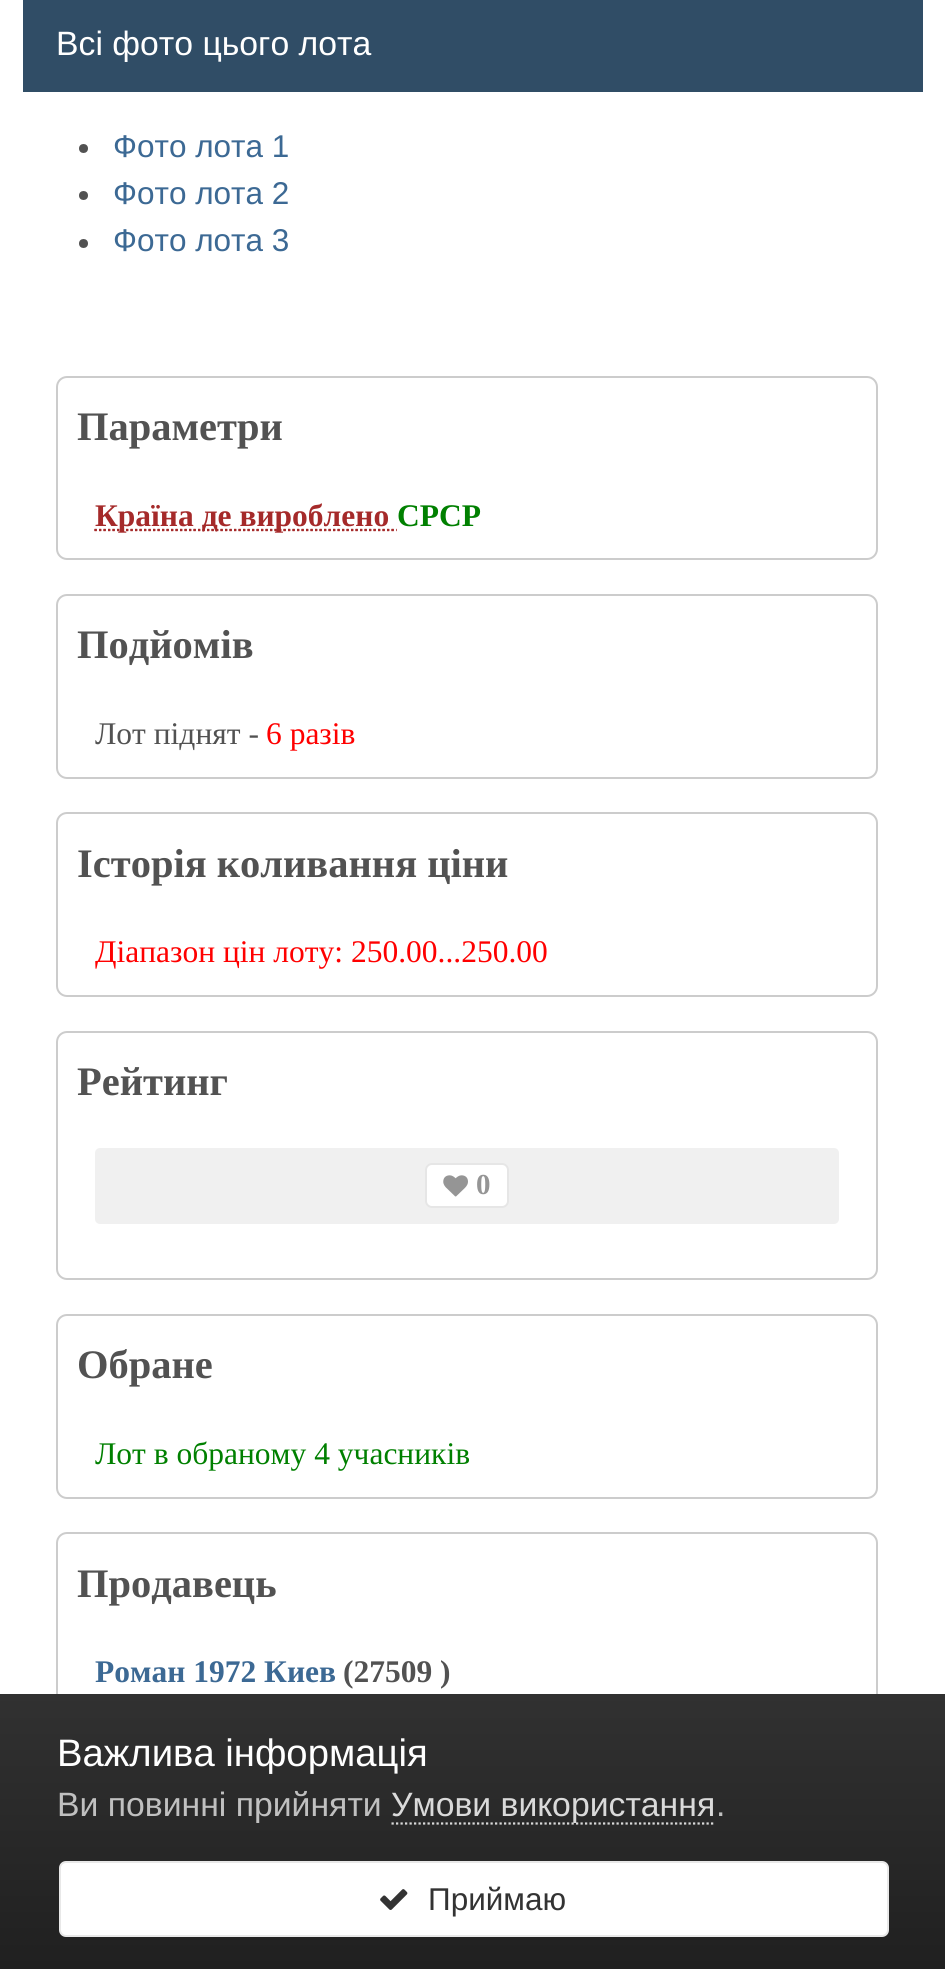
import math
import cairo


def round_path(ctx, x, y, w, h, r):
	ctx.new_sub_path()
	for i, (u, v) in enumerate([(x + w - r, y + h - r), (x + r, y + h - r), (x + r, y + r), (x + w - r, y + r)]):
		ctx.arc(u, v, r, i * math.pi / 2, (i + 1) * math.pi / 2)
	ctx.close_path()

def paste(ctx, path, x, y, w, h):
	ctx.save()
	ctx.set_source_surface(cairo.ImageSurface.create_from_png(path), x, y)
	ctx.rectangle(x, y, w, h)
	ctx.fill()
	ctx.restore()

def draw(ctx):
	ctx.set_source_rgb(1, 1, 1)
	ctx.paint()
	ctx.set_source_rgb(0.188, 0.302, 0.4)
	ctx.rectangle(23, 0, 900, 92)
	ctx.fill()
	ctx.select_font_face('Liberation Sans')
	ctx.set_font_size(33.75)
	ctx.set_source_rgb(1, 1, 1)
	ctx.move_to(56, 55)
	ctx.show_text('Всі фото цього лота')
	ctx.set_source_rgb(0.322, 0.322, 0.322)
	ctx.new_path()
	ctx.arc(83.5, 148.5, 4.5, 0, 2 * math.pi)
	ctx.fill()
	ctx.set_font_size(31.5)
	ctx.set_source_rgb(0.235, 0.412, 0.58)
	ctx.move_to(113, 157)
	ctx.show_text('Фото лота 1')
	ctx.set_source_rgb(0.322, 0.322, 0.322)
	ctx.new_path()
	ctx.arc(83.5, 195.5, 4.5, 0, 2 * math.pi)
	ctx.fill()
	ctx.set_source_rgb(0.235, 0.412, 0.58)
	ctx.move_to(113, 204)
	ctx.show_text('Фото лота 2')
	ctx.set_source_rgb(0.322, 0.322, 0.322)
	ctx.new_path()
	ctx.arc(83.5, 243.5, 4.5, 0, 2 * math.pi)
	ctx.fill()
	ctx.set_source_rgb(0.235, 0.412, 0.58)
	ctx.move_to(113, 251)
	ctx.show_text('Фото лота 3')
	round_path(ctx, 57, 377, 820, 182, 10)
	ctx.set_source_rgb(0.8, 0.8, 0.8)
	ctx.stroke()
	ctx.select_font_face('Liberation Serif', cairo.FONT_SLANT_NORMAL, cairo.FONT_WEIGHT_BOLD)
	ctx.set_font_size(40.5)
	ctx.set_source_rgb(0.322, 0.322, 0.322)
	ctx.move_to(77, 440)
	ctx.show_text('Параметри')
	ctx.new_path()
	ctx.move_to(94.5, 530)
	ctx.line_to(396.5, 530)
	ctx.set_source_rgb(0.647, 0.165, 0.165)
	ctx.set_line_width(2.2)
	ctx.set_dash([2.25, 2.25])
	ctx.stroke()
	ctx.new_path()
	ctx.move_to(94.5, 530)
	ctx.line_to(396.5, 530)
	ctx.stroke()
	ctx.set_font_size(31.5)
	ctx.move_to(95, 526)
	ctx.show_text('Країна де вироблено')
	ctx.set_source_rgb(0, 0.502, 0)
	ctx.move_to(397, 526)
	ctx.show_text('СРСР')
	round_path(ctx, 57, 595, 820, 183, 10)
	ctx.set_source_rgb(0.8, 0.8, 0.8)
	ctx.set_line_width(2)
	ctx.set_dash([])
	ctx.stroke()
	ctx.set_font_size(40.5)
	ctx.set_source_rgb(0.322, 0.322, 0.322)
	ctx.move_to(77, 658)
	ctx.show_text('Подйомів')
	ctx.select_font_face('Liberation Serif')
	ctx.set_font_size(31.5)
	ctx.move_to(95, 744)
	ctx.show_text('Лот піднят -')
	ctx.set_source_rgb(1, 0, 0)
	ctx.move_to(266, 744)
	ctx.show_text('6 разів')
	round_path(ctx, 57, 813, 820, 183, 10)
	ctx.set_source_rgb(0.8, 0.8, 0.8)
	ctx.stroke()
	ctx.select_font_face('Liberation Serif', cairo.FONT_SLANT_NORMAL, cairo.FONT_WEIGHT_BOLD)
	ctx.set_font_size(40.5)
	ctx.set_source_rgb(0.322, 0.322, 0.322)
	ctx.move_to(77, 877)
	ctx.show_text('Історія коливання ціни')
	ctx.select_font_face('Liberation Serif')
	ctx.set_font_size(31.5)
	ctx.set_source_rgb(1, 0, 0)
	ctx.move_to(95, 962)
	ctx.show_text('Діапазон цін лоту: 250.00...250.00')
	round_path(ctx, 57, 1032, 820, 247, 10)
	ctx.set_source_rgb(0.8, 0.8, 0.8)
	ctx.stroke()
	ctx.select_font_face('Liberation Serif', cairo.FONT_SLANT_NORMAL, cairo.FONT_WEIGHT_BOLD)
	ctx.set_font_size(40.5)
	ctx.set_source_rgb(0.322, 0.322, 0.322)
	ctx.move_to(77, 1095)
	ctx.show_text('Рейтинг')
	ctx.set_source_rgb(0.941, 0.941, 0.941)
	round_path(ctx, 95, 1148, 744, 76, 5)
	ctx.fill()
	ctx.set_source_rgb(1, 1, 1)
	round_path(ctx, 425, 1163, 84, 45, 7)
	ctx.fill()
	round_path(ctx, 426, 1164, 82, 43, 6)
	ctx.set_source_rgba(0, 0, 0, 0.1)
	ctx.stroke()
	paste(ctx, 'media/1.png', 443, 1175, 25, 22)
	ctx.set_font_size(29)
	ctx.set_source_rgb(0.584, 0.584, 0.584)
	ctx.move_to(476, 1194)
	ctx.show_text('0')
	round_path(ctx, 57, 1315, 820, 183, 10)
	ctx.set_source_rgb(0.8, 0.8, 0.8)
	ctx.stroke()
	ctx.set_font_size(40.5)
	ctx.set_source_rgb(0.322, 0.322, 0.322)
	ctx.move_to(77, 1378)
	ctx.show_text('Обране')
	ctx.select_font_face('Liberation Serif')
	ctx.set_font_size(31.5)
	ctx.set_source_rgb(0, 0.502, 0)
	ctx.move_to(95, 1464)
	ctx.show_text('Лот в обраному 4 учасників')
	round_path(ctx, 57, 1533, 820, 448, 10)
	ctx.set_source_rgb(0.8, 0.8, 0.8)
	ctx.stroke()
	ctx.select_font_face('Liberation Serif', cairo.FONT_SLANT_NORMAL, cairo.FONT_WEIGHT_BOLD)
	ctx.set_font_size(40.5)
	ctx.set_source_rgb(0.322, 0.322, 0.322)
	ctx.move_to(77, 1597)
	ctx.show_text('Продавець')
	ctx.set_font_size(31.5)
	ctx.set_source_rgb(0.235, 0.412, 0.58)
	ctx.move_to(95, 1682)
	ctx.show_text('Роман 1972 Киев')
	ctx.set_source_rgb(0.322, 0.322, 0.322)
	ctx.move_to(343, 1682)
	ctx.show_text('(27509 )')
	gradient = cairo.LinearGradient(473, 1694, 473, 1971)
	gradient.add_color_stop_rgba(0, 0.192, 0.192, 0.192, 1)
	gradient.add_color_stop_rgba(1, 0.125, 0.125, 0.125, 1)
	ctx.set_source(gradient)
	ctx.rectangle(0, 1694, 945, 275)
	ctx.fill()
	ctx.select_font_face('Liberation Sans')
	ctx.set_font_size(38.25)
	ctx.set_source_rgb(1, 1, 1)
	ctx.move_to(57, 1766)
	ctx.show_text('Важлива інформація')
	ctx.set_font_size(33.75)
	ctx.set_source_rgb(0.753, 0.753, 0.753)
	ctx.move_to(57, 1816)
	ctx.show_text('Ви повинні прийняти')
	ctx.new_path()
	ctx.move_to(391.5, 1823.5)
	ctx.line_to(715.5, 1823.5)
	ctx.set_source_rgb(0.855, 0.855, 0.855)
	ctx.set_line_width(2.2)
	ctx.set_dash([2.25, 2.25])
	ctx.stroke()
	ctx.move_to(391, 1816)
	ctx.show_text('Умови використання')
	ctx.set_source_rgb(0.753, 0.753, 0.753)
	ctx.move_to(716, 1816)
	ctx.show_text('.')
	ctx.set_source_rgb(1, 1, 1)
	round_path(ctx, 60, 1862, 828, 74, 6)
	ctx.fill_preserve()
	ctx.set_source_rgb(0.91, 0.91, 0.91)
	ctx.set_line_width(2)
	ctx.set_dash([])
	ctx.stroke()
	paste(ctx, 'media/2.png', 380, 1889, 28, 21)
	ctx.set_font_size(31.5)
	ctx.set_source_rgb(0.2, 0.2, 0.2)
	ctx.move_to(428, 1910)
	ctx.show_text('Приймаю')


surface = cairo.ImageSurface(cairo.FORMAT_RGB24, 945, 1969)
ctx = cairo.Context(surface)
options = cairo.FontOptions()
options.set_hint_metrics(cairo.HINT_METRICS_OFF)
options.set_hint_style(cairo.HINT_STYLE_NONE)
ctx.set_font_options(options)
ctx.set_miter_limit(4)
draw(ctx)
surface.write_to_png('image.png')
